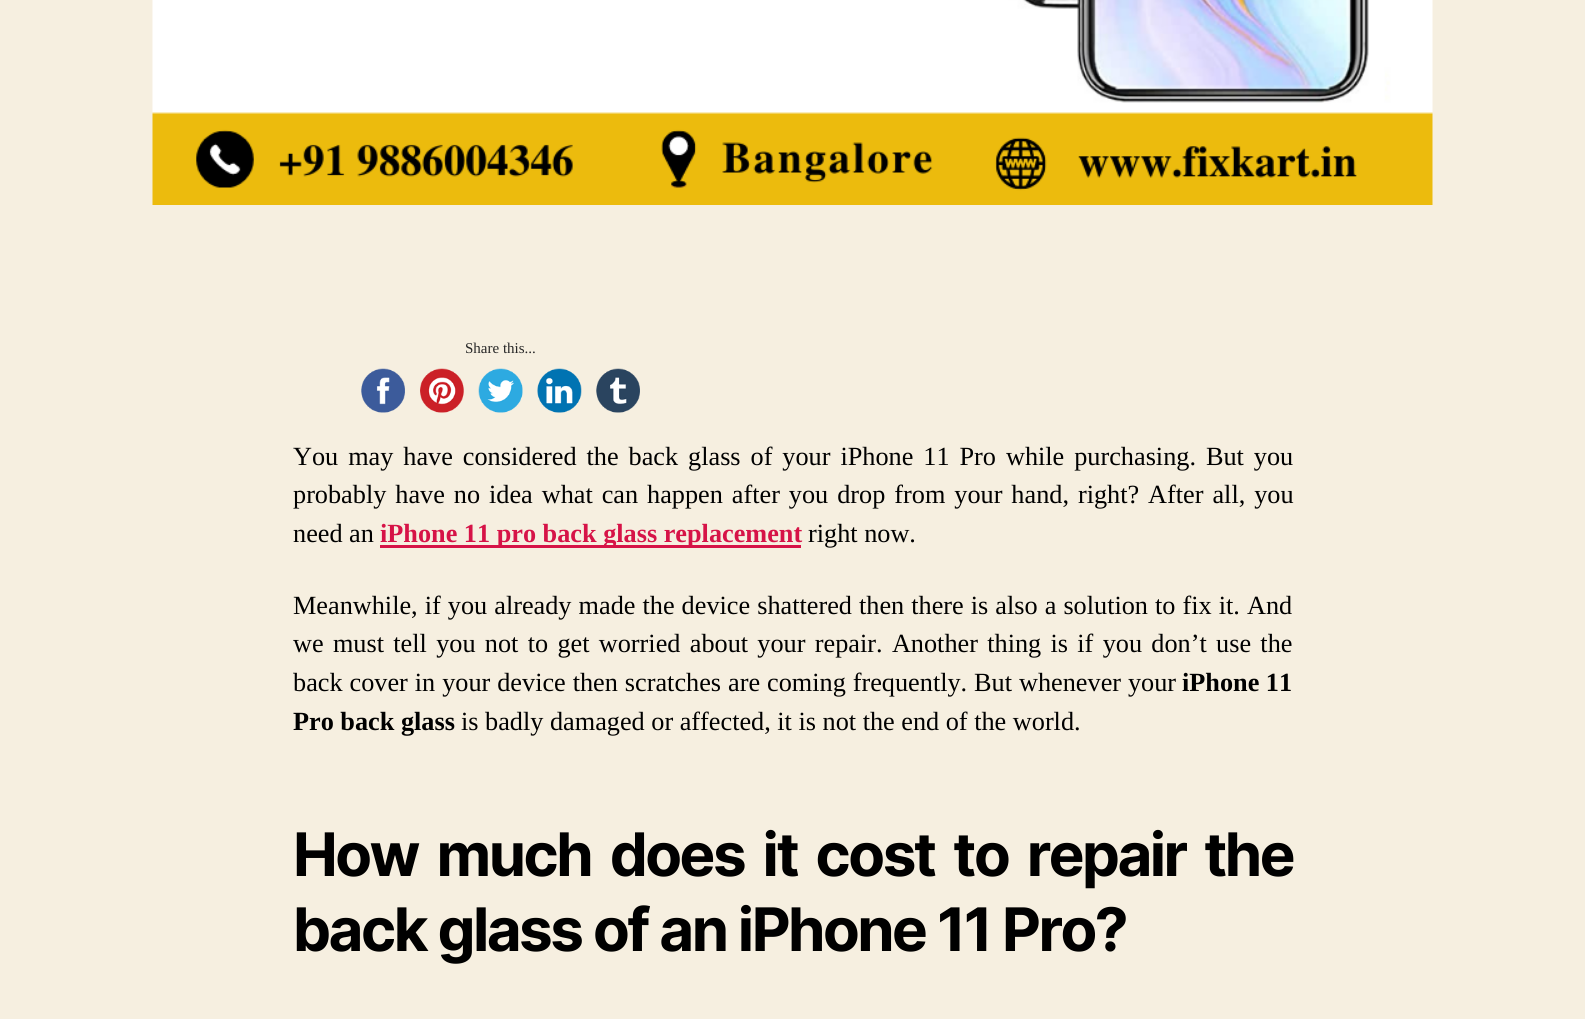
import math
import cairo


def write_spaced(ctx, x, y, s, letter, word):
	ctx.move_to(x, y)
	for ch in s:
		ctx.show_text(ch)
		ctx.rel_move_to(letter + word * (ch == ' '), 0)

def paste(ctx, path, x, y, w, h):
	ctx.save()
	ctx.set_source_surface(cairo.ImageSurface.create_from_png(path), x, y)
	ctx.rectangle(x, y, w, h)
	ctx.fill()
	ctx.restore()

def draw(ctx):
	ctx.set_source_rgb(0.961, 0.937, 0.878)
	ctx.paint()
	paste(ctx, 'media/1.png', 152, 0, 1281, 205)
	ctx.select_font_face('Liberation Serif')
	ctx.set_font_size(15)
	ctx.set_source_rgb(0.153, 0.153, 0.153)
	ctx.move_to(465, 353)
	ctx.show_text('Share this...')
	paste(ctx, 'media/2.png', 361, 368, 44, 45)
	paste(ctx, 'media/3.png', 420, 368, 44, 45)
	paste(ctx, 'media/4.png', 478, 368, 45, 45)
	paste(ctx, 'media/5.png', 537, 368, 45, 45)
	paste(ctx, 'media/6.png', 596, 368, 44, 45)
	ctx.set_font_size(26.25)
	ctx.set_source_rgb(0, 0, 0)
	write_spaced(ctx, 293, 465, 'You may have considered the back glass of your iPhone 11 Pro while purchasing. But you', 0, 3.4)
	write_spaced(ctx, 293, 503, 'probably have no idea what can happen after you drop from your hand, right? After all, you', 0, 2.4)
	ctx.move_to(293, 542)
	ctx.show_text('need an')
	ctx.set_source_rgb(0.839, 0.075, 0.278)
	ctx.rectangle(380, 545, 421, 3)
	ctx.fill()
	ctx.select_font_face('Liberation Serif', cairo.FONT_SLANT_NORMAL, cairo.FONT_WEIGHT_BOLD)
	ctx.move_to(380, 542)
	ctx.show_text('iPhone 11 pro back glass replacement')
	ctx.select_font_face('Liberation Serif')
	ctx.set_source_rgb(0, 0, 0)
	ctx.move_to(808, 542)
	ctx.show_text('right now.')
	write_spaced(ctx, 293, 614, 'Meanwhile, if you already made the device shattered then there is also a solution to fix it. And', 0, 0.5)
	write_spaced(ctx, 293, 652, 'we must tell you not to get worried about your repair. Another thing is if you don’t use the', 0, 2.75)
	write_spaced(ctx, 293, 691, 'back cover in your device then scratches are coming frequently. But whenever your', 0, 0.4)
	ctx.select_font_face('Liberation Serif', cairo.FONT_SLANT_NORMAL, cairo.FONT_WEIGHT_BOLD)
	ctx.move_to(1182, 691)
	ctx.show_text('iPhone 11')
	ctx.move_to(293, 730)
	ctx.show_text('Pro back glass')
	ctx.select_font_face('Liberation Serif')
	ctx.move_to(461, 730)
	ctx.show_text('is badly damaged or affected, it is not the end of the world.')
	ctx.select_font_face('Inter', cairo.FONT_SLANT_NORMAL, cairo.FONT_WEIGHT_BOLD)
	ctx.set_font_size(60)
	write_spaced(ctx, 293, 876, 'How much does it cost to repair the', -2.5, 7)
	write_spaced(ctx, 293, 951, 'back glass of an iPhone 11 Pro?', -2.5, 0)


surface = cairo.ImageSurface(cairo.FORMAT_RGB24, 1585, 1019)
ctx = cairo.Context(surface)
options = cairo.FontOptions()
options.set_hint_metrics(cairo.HINT_METRICS_OFF)
options.set_hint_style(cairo.HINT_STYLE_NONE)
ctx.set_font_options(options)
ctx.set_miter_limit(4)
draw(ctx)
surface.write_to_png('image.png')
